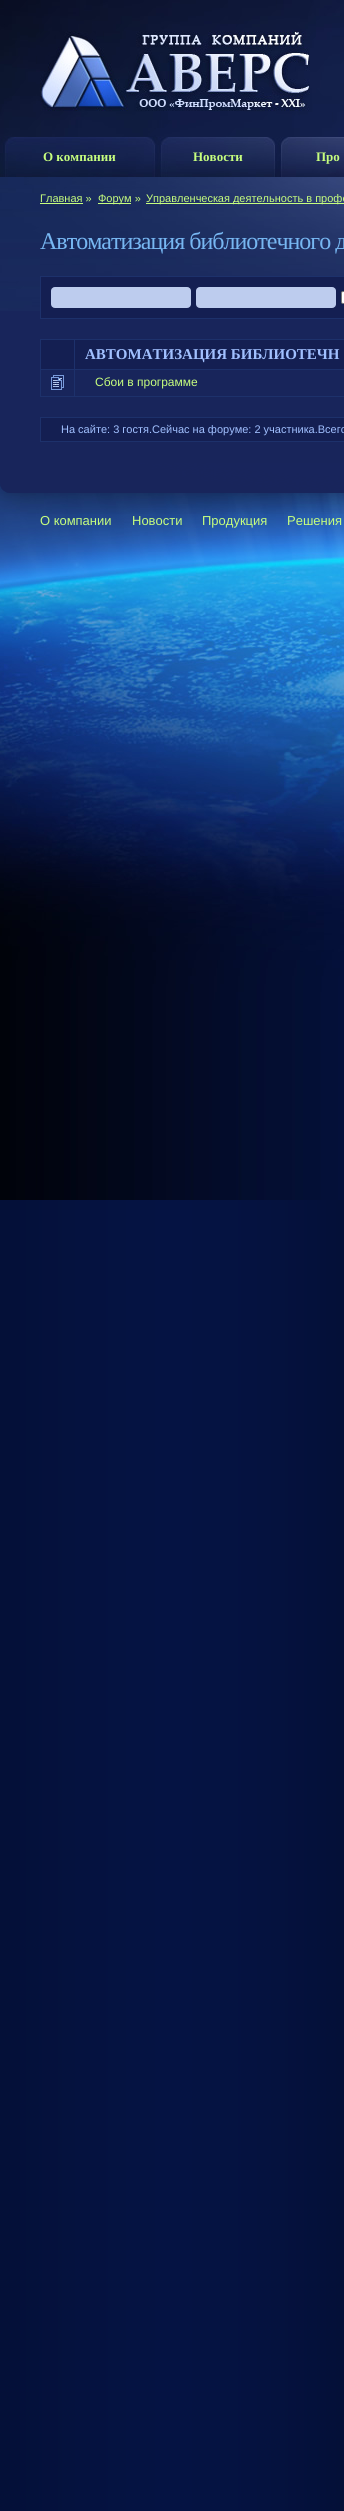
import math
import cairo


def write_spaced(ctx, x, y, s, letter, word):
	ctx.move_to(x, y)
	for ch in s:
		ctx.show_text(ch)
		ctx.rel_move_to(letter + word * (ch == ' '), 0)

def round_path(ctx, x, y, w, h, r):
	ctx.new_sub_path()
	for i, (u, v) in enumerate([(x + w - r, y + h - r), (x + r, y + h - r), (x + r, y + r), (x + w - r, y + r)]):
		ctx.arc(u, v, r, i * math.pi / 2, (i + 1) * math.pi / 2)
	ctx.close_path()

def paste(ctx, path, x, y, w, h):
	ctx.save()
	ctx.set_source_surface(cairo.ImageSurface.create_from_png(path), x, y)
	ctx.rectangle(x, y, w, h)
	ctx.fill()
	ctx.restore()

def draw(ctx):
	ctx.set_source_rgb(1, 1, 1)
	ctx.paint()
	paste(ctx, 'media/1.png', 0, 1200, 344, 1311)
	paste(ctx, 'media/2.png', 0, 0, 344, 1200)
	paste(ctx, 'media/3.png', 40, 31, 270, 80)
	paste(ctx, 'media/4.png', 0, 137, 158, 40)
	ctx.select_font_face('Liberation Serif', cairo.FONT_SLANT_NORMAL, cairo.FONT_WEIGHT_BOLD)
	ctx.set_font_size(13)
	ctx.set_source_rgb(0.776, 0.996, 0.494)
	ctx.move_to(43, 161)
	ctx.show_text('О компании')
	paste(ctx, 'media/5.png', 158, 137, 120, 40)
	ctx.move_to(193, 161)
	ctx.show_text('Новости')
	paste(ctx, 'media/6.png', 278, 137, 66, 40)
	ctx.move_to(316, 161)
	ctx.show_text('Про')
	ctx.set_source_rgb(0.094, 0.145, 0.357)
	ctx.rectangle(0, 311, 344, 152)
	ctx.fill()
	paste(ctx, 'media/7.png', 0, 177, 344, 134)
	ctx.select_font_face('Liberation Sans')
	ctx.set_font_size(11)
	ctx.set_source_rgb(0.776, 0.996, 0.494)
	ctx.move_to(40, 202)
	ctx.show_text('Главная »')
	ctx.rectangle(40, 203, 43, 1)
	ctx.fill()
	ctx.rectangle(98, 203, 33, 1)
	ctx.fill()
	ctx.move_to(98, 202)
	ctx.show_text('Форум »')
	ctx.rectangle(146, 203, 198, 1)
	ctx.fill()
	ctx.move_to(146, 202)
	ctx.show_text('Управленческая деятельность в профе')
	ctx.select_font_face('Liberation Serif')
	ctx.set_font_size(24)
	ctx.set_source_rgb(0.467, 0.718, 0.949)
	write_spaced(ctx, 40, 249, 'Автоматизация библиотечного д', -1, 0)
	ctx.set_source_rgb(0.082, 0.122, 0.322)
	ctx.rectangle(40.5, 276.5, 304, 42)
	ctx.fill_preserve()
	ctx.set_source_rgb(0.114, 0.192, 0.42)
	ctx.set_line_width(1)
	ctx.stroke()
	paste(ctx, 'media/8.png', 51, 287, 140, 21)
	paste(ctx, 'media/8.png', 196, 287, 140, 21)
	ctx.set_source_rgb(1, 1, 1)
	round_path(ctx, 341.5, 291.5, 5, 12, 1.5)
	ctx.fill_preserve()
	ctx.set_source_rgb(0.463, 0.463, 0.463)
	ctx.stroke()
	ctx.set_source_rgb(0.082, 0.122, 0.322)
	ctx.rectangle(41, 340, 33, 29)
	ctx.fill()
	ctx.set_source_rgb(0.114, 0.192, 0.42)
	ctx.rectangle(74, 339, 270, 1)
	ctx.rectangle(74, 369, 270, 1)
	ctx.rectangle(74, 396, 270, 1)
	ctx.rectangle(74, 369, 1, 28)
	ctx.rectangle(40, 369, 35, 1)
	ctx.rectangle(74, 339, 1, 31)
	ctx.rectangle(40, 339, 35, 1)
	ctx.rectangle(40, 396, 35, 1)
	ctx.rectangle(40, 369, 1, 28)
	ctx.rectangle(40, 339, 1, 31)
	ctx.fill()
	ctx.set_source_rgb(0.082, 0.122, 0.322)
	ctx.rectangle(75, 340, 269, 29)
	ctx.fill()
	ctx.select_font_face('Liberation Serif', cairo.FONT_SLANT_NORMAL, cairo.FONT_WEIGHT_BOLD)
	ctx.set_font_size(15)
	ctx.set_source_rgb(0.631, 0.753, 1)
	ctx.move_to(85, 359)
	ctx.show_text('АВТОМАТИЗАЦИЯ БИБЛИОТЕЧН')
	paste(ctx, 'media/9.png', 51, 375, 13, 15)
	ctx.select_font_face('Liberation Sans')
	ctx.set_font_size(12)
	ctx.set_source_rgb(0.776, 0.996, 0.494)
	ctx.move_to(95, 386)
	ctx.show_text('Сбои в программе')
	ctx.set_source_rgb(0.082, 0.122, 0.322)
	ctx.rectangle(40.5, 417.5, 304, 24)
	ctx.fill_preserve()
	ctx.set_source_rgb(0.114, 0.192, 0.42)
	ctx.stroke()
	ctx.set_font_size(11)
	ctx.set_source_rgb(0.631, 0.753, 1)
	ctx.move_to(61, 433)
	ctx.show_text('На сайте: 3 гостя.Сейчас на форуме: 2 участника.Всего')
	paste(ctx, 'media/10.png', 0, 463, 344, 51)
	ctx.set_font_size(13)
	ctx.set_source_rgb(0.776, 0.996, 0.494)
	for x, y, s in [
		(40, 525, 'О компании'),
		(132, 525, 'Новости'),
		(202, 525, 'Продукция'),
		(287, 525, 'Решения'),
	]:
		ctx.move_to(x, y)
		ctx.show_text(s)


surface = cairo.ImageSurface(cairo.FORMAT_RGB24, 344, 2511)
ctx = cairo.Context(surface)
options = cairo.FontOptions()
options.set_hint_metrics(cairo.HINT_METRICS_OFF)
options.set_hint_style(cairo.HINT_STYLE_NONE)
ctx.set_font_options(options)
ctx.set_miter_limit(4)
draw(ctx)
surface.write_to_png('image.png')
